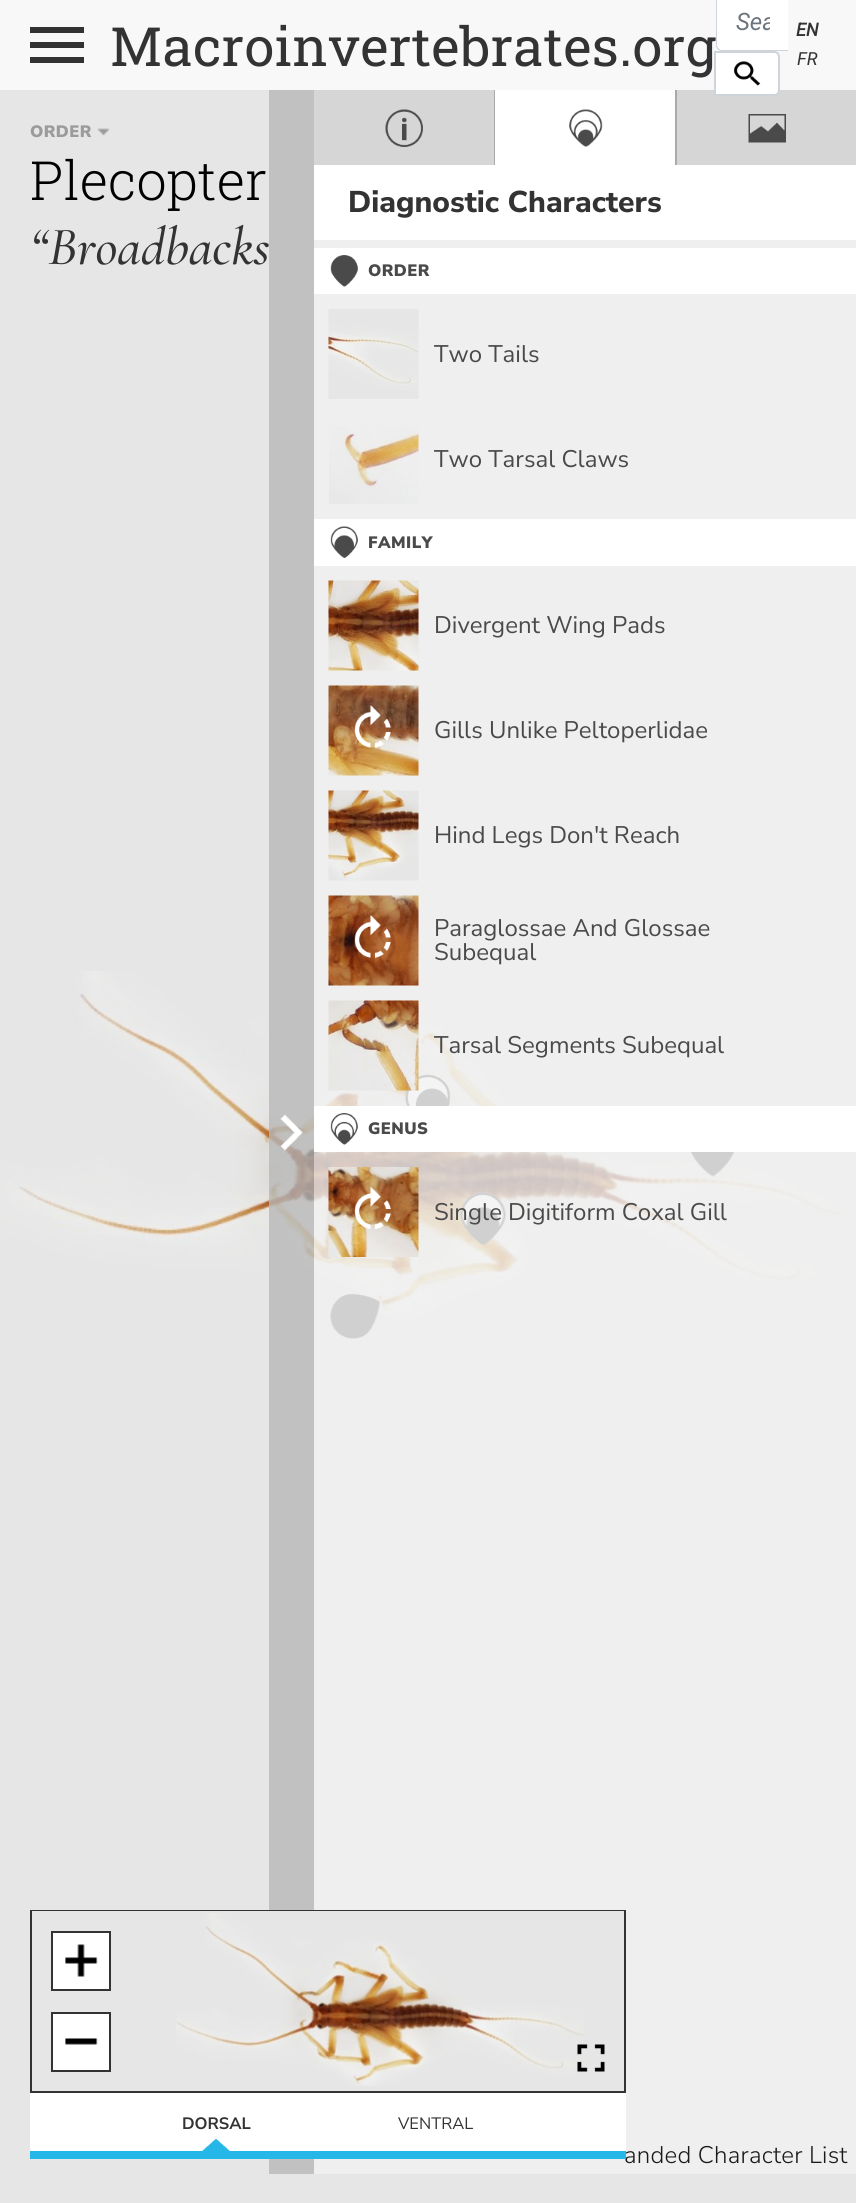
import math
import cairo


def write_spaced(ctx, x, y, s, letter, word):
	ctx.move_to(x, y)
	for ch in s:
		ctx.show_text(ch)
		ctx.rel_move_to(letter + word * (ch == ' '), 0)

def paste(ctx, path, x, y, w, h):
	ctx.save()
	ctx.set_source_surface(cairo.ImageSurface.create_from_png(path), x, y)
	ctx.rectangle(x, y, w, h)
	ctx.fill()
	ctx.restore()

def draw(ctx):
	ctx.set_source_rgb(0.902, 0.902, 0.902)
	ctx.paint()
	ctx.set_source_rgb(0.969, 0.969, 0.969)
	ctx.rectangle(0, 0, 856, 90)
	ctx.fill()
	paste(ctx, 'media/1.png', 30, 27, 54, 36)
	ctx.select_font_face('Roboto Slab')
	ctx.set_font_size(54)
	ctx.set_source_rgb(0.2, 0.2, 0.2)
	write_spaced(ctx, 110, 66, 'Macroinvertebrates.org', 0.45, 0)
	ctx.set_source_rgb(1, 1, 1)
	ctx.new_path()
	ctx.move_to(722, -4)
	ctx.line_to(788, -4)
	ctx.line_to(788, 50)
	ctx.line_to(722, 50)
	ctx.curve_to(719, 50, 717, 48, 717, 45)
	ctx.line_to(717, 1)
	ctx.curve_to(717, -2, 719, -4, 722, -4)
	ctx.close_path()
	ctx.fill()
	ctx.set_source_rgb(0.808, 0.831, 0.855)
	ctx.set_fill_rule(cairo.FILL_RULE_EVEN_ODD)
	ctx.new_path()
	ctx.move_to(722, -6)
	ctx.line_to(788, -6)
	ctx.line_to(788, 51)
	ctx.line_to(722, 51)
	ctx.curve_to(718, 51, 716, 48, 716, 45)
	ctx.line_to(716, 0)
	ctx.curve_to(716, -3, 718, -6, 722, -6)
	ctx.close_path()
	ctx.move_to(722, -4)
	ctx.line_to(788, -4)
	ctx.line_to(788, 50)
	ctx.line_to(722, 50)
	ctx.curve_to(719, 50, 717, 47, 717, 45)
	ctx.line_to(717, 0)
	ctx.curve_to(717, -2, 719, -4, 722, -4)
	ctx.close_path()
	ctx.fill()
	ctx.save()
	ctx.set_fill_rule(cairo.FILL_RULE_WINDING)
	ctx.rectangle(735, 8, 35, 28)
	ctx.clip()
	ctx.select_font_face('Roboto', cairo.FONT_SLANT_ITALIC)
	ctx.set_font_size(24)
	ctx.set_source_rgb(0.424, 0.459, 0.49)
	ctx.move_to(736, 30)
	ctx.show_text('Sea')
	ctx.restore()
	ctx.set_source_rgb(0.839, 0.839, 0.839)
	ctx.rectangle(677, 90, 179, 75)
	ctx.fill()
	ctx.set_source_rgb(1, 1, 1)
	ctx.new_path()
	ctx.move_to(715, 52)
	ctx.line_to(774, 52)
	ctx.curve_to(777, 52, 779, 54, 779, 57)
	ctx.line_to(779, 90)
	ctx.curve_to(779, 93, 777, 95, 774, 95)
	ctx.line_to(715, 95)
	ctx.close_path()
	ctx.fill_preserve()
	ctx.set_source_rgb(0.808, 0.831, 0.855)
	ctx.stroke()
	paste(ctx, 'media/2.png', 733, 61, 28, 25)
	ctx.select_font_face('Roboto', cairo.FONT_SLANT_ITALIC, cairo.FONT_WEIGHT_BOLD)
	ctx.set_font_size(18)
	ctx.set_source_rgb(0.2, 0.2, 0.2)
	ctx.move_to(796, 36)
	ctx.show_text('EN')
	ctx.select_font_face('Roboto', cairo.FONT_SLANT_ITALIC)
	ctx.move_to(797, 65)
	ctx.show_text('FR')
	ctx.select_font_face('Nunito Sans Black')
	ctx.set_font_size(16.5)
	ctx.set_source_rgb(0.608, 0.608, 0.608)
	write_spaced(ctx, 30, 137, 'ORDER', 0.45, 0)
	paste(ctx, 'media/3.png', 97, 128, 13, 8)
	ctx.select_font_face('Roboto Slab Light')
	ctx.set_font_size(54)
	ctx.set_source_rgb(0, 0, 0)
	ctx.move_to(30, 200)
	ctx.show_text('Plecopter')
	ctx.select_font_face('Cormorant Garamond Medium', cairo.FONT_SLANT_ITALIC)
	ctx.set_source_rgb(0.2, 0.2, 0.2)
	ctx.move_to(30, 264)
	ctx.show_text('“Broadbacks')
	paste(ctx, 'media/27.png', 0, 971, 848, 348)
	ctx.set_source_rgba(0.718, 0.718, 0.718, 0.8)
	ctx.rectangle(269, 90, 45, 2084)
	ctx.fill()
	paste(ctx, 'media/28.png', 405, 1074, 46, 32)
	paste(ctx, 'media/29.png', 690, 1152, 45, 25)
	paste(ctx, 'media/30.png', 460, 1192, 46, 53)
	paste(ctx, 'media/31.png', 329, 1293, 52, 46)
	ctx.set_source_rgba(0.945, 0.945, 0.945, 0.8)
	ctx.rectangle(314, 240, 542, 1890)
	ctx.fill()
	ctx.set_source_rgb(0.937, 0.937, 0.937)
	ctx.rectangle(314, 2130, 542, 44)
	ctx.fill()
	ctx.select_font_face('Nunito Sans Light')
	ctx.set_font_size(24)
	ctx.set_source_rgb(0.102, 0.102, 0.102)
	write_spaced(ctx, 624, 2163, 'anded Character List', 0.25, 0)
	ctx.set_source_rgb(1, 1, 1)
	ctx.rectangle(30, 2093, 596, 58)
	ctx.fill()
	ctx.rectangle(31, 1911, 594, 181)
	ctx.set_source_rgb(0.2, 0.2, 0.2)
	ctx.stroke()
	ctx.set_source_rgb(0.902, 0.902, 0.902)
	ctx.rectangle(32, 1911, 592, 180)
	ctx.fill()
	ctx.set_source_rgb(1, 1, 1)
	ctx.rectangle(52, 1932, 58, 58)
	ctx.fill_preserve()
	ctx.set_source_rgb(0.2, 0.2, 0.2)
	ctx.stroke()
	paste(ctx, 'media/4.png', 65, 1944, 33, 33)
	ctx.set_source_rgb(1, 1, 1)
	ctx.rectangle(52, 2013, 58, 58)
	ctx.fill_preserve()
	ctx.set_source_rgb(0.2, 0.2, 0.2)
	ctx.stroke()
	paste(ctx, 'media/5.png', 65, 2038, 33, 7)
	paste(ctx, 'media/6.png', 176, 1913, 408, 173)
	paste(ctx, 'media/7.png', 577, 2044, 28, 28)
	ctx.select_font_face('Nunito Sans', cairo.FONT_SLANT_NORMAL, cairo.FONT_WEIGHT_BOLD)
	ctx.set_font_size(16.5)
	ctx.move_to(182, 2129)
	ctx.show_text('DORSAL')
	paste(ctx, 'media/8.png', 202, 2139, 28, 12)
	ctx.select_font_face('Nunito Sans')
	ctx.move_to(398, 2129)
	ctx.show_text('VENTRAL')
	ctx.set_source_rgb(0.141, 0.718, 0.91)
	ctx.rectangle(30, 2151, 596, 8)
	ctx.fill()
	paste(ctx, 'media/9.png', 280, 1114, 23, 37)
	ctx.set_source_rgb(0.839, 0.839, 0.839)
	ctx.rectangle(314, 90, 180, 75)
	ctx.fill()
	paste(ctx, 'media/10.png', 385, 109, 38, 38)
	ctx.set_source_rgb(0.667, 0.667, 0.667)
	ctx.rectangle(494, 90, 1, 75)
	ctx.fill()
	ctx.set_source_rgb(1, 1, 1)
	ctx.rectangle(495, 90, 180, 75)
	ctx.fill()
	paste(ctx, 'media/11.png', 569, 109, 34, 38)
	ctx.set_source_rgb(0.667, 0.667, 0.667)
	ctx.rectangle(675, 90, 2, 75)
	ctx.fill()
	paste(ctx, 'media/12.png', 748, 114, 38, 29)
	ctx.set_source_rgb(1, 1, 1)
	ctx.rectangle(314, 165, 542, 75)
	ctx.fill()
	ctx.select_font_face('Nunito Sans ExtraBold')
	ctx.set_font_size(30)
	ctx.set_source_rgb(0.2, 0.2, 0.2)
	ctx.move_to(348, 212)
	ctx.show_text('Diagnostic Characters')
	ctx.set_source_rgb(1, 1, 1)
	ctx.rectangle(314, 248, 542, 46)
	ctx.fill()
	paste(ctx, 'media/13.png', 330, 255, 28, 32)
	ctx.select_font_face('Nunito Sans Black')
	ctx.set_font_size(16.5)
	ctx.set_source_rgb(0.29, 0.29, 0.29)
	write_spaced(ctx, 368, 276, 'ORDER', 0.45, 0)
	paste(ctx, 'media/14.png', 328, 309, 91, 90)
	ctx.select_font_face('Nunito Sans')
	ctx.set_font_size(24)
	ctx.move_to(434, 362)
	ctx.show_text('Two Tails')
	paste(ctx, 'media/15.png', 329, 426, 90, 78)
	ctx.move_to(434, 467)
	ctx.show_text('Two Tarsal Claws')
	ctx.set_source_rgb(1, 1, 1)
	ctx.rectangle(314, 519, 542, 47)
	ctx.fill()
	paste(ctx, 'media/16.png', 330, 526, 28, 32)
	ctx.select_font_face('Nunito Sans Black')
	ctx.set_font_size(16.5)
	ctx.set_source_rgb(0.29, 0.29, 0.29)
	write_spaced(ctx, 368, 548, 'FAMILY', 0.45, 0)
	paste(ctx, 'media/17.png', 328, 580, 91, 91)
	ctx.select_font_face('Nunito Sans')
	ctx.set_font_size(24)
	ctx.move_to(434, 633)
	ctx.show_text('Divergent Wing Pads')
	paste(ctx, 'media/18.png', 328, 685, 91, 91)
	paste(ctx, 'media/19.png', 354, 705, 37, 43)
	ctx.move_to(434, 738)
	ctx.show_text('Gills Unlike Peltoperlidae')
	paste(ctx, 'media/20.png', 328, 790, 91, 91)
	ctx.move_to(434, 843)
	ctx.show_text('Hind Legs Don\'t Reach')
	paste(ctx, 'media/21.png', 328, 895, 91, 91)
	paste(ctx, 'media/22.png', 354, 915, 37, 43)
	ctx.move_to(434, 936)
	ctx.show_text('Paraglossae And Glossae')
	ctx.move_to(434, 960)
	ctx.show_text('Subequal')
	paste(ctx, 'media/23.png', 328, 1000, 91, 91)
	ctx.move_to(434, 1053)
	ctx.show_text('Tarsal Segments Subequal')
	ctx.set_source_rgb(1, 1, 1)
	ctx.rectangle(314, 1106, 542, 46)
	ctx.fill()
	paste(ctx, 'media/24.png', 330, 1113, 28, 32)
	ctx.select_font_face('Nunito Sans Black')
	ctx.set_font_size(16.5)
	ctx.set_source_rgb(0.29, 0.29, 0.29)
	write_spaced(ctx, 368, 1134, 'GENUS', 0.45, 0)
	paste(ctx, 'media/25.png', 328, 1167, 91, 90)
	paste(ctx, 'media/26.png', 354, 1186, 37, 44)
	ctx.select_font_face('Nunito Sans')
	ctx.set_font_size(24)
	ctx.move_to(434, 1220)
	ctx.show_text('Single Digitiform Coxal Gill')


surface = cairo.ImageSurface(cairo.FORMAT_RGB24, 856, 2203)
ctx = cairo.Context(surface)
options = cairo.FontOptions()
options.set_hint_metrics(cairo.HINT_METRICS_OFF)
options.set_hint_style(cairo.HINT_STYLE_NONE)
ctx.set_font_options(options)
ctx.set_miter_limit(4)
draw(ctx)
surface.write_to_png('image.png')
